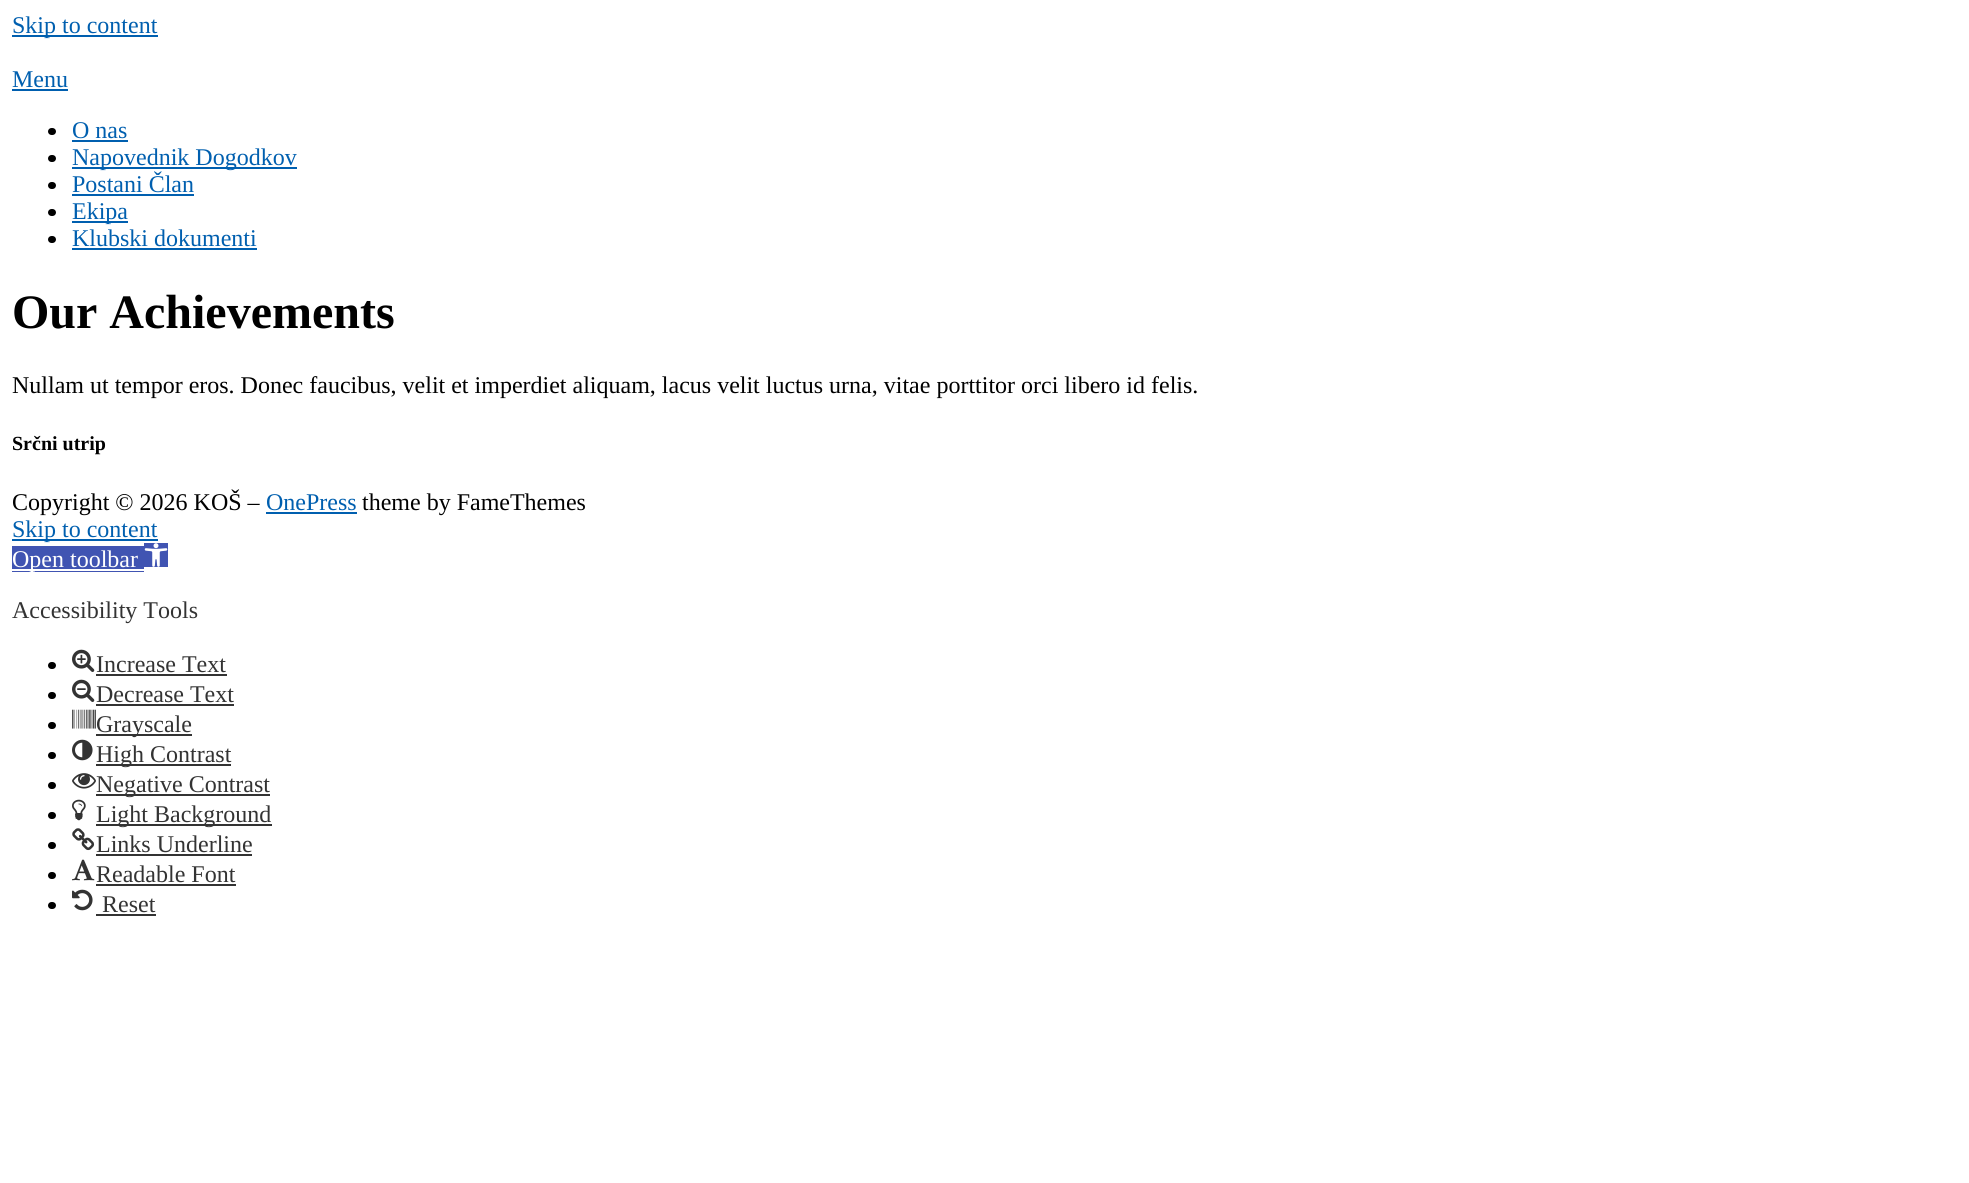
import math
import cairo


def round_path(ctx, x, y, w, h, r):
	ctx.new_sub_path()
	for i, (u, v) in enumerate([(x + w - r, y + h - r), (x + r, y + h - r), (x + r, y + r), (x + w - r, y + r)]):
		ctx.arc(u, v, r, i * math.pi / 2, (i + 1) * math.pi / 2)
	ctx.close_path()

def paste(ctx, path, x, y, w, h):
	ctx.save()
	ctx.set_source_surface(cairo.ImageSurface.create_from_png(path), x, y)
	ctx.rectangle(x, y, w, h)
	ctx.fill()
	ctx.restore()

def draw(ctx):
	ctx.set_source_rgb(1, 1, 1)
	ctx.paint()
	ctx.set_source_rgb(0, 0.373, 0.686)
	ctx.rectangle(12, 35, 146, 2)
	ctx.fill()
	ctx.select_font_face('Liberation Serif')
	ctx.set_font_size(24)
	ctx.move_to(12, 33)
	ctx.show_text('Skip to content')
	ctx.move_to(12, 87)
	ctx.show_text('Menu')
	ctx.rectangle(12, 89, 56, 2)
	ctx.fill()
	ctx.set_source_rgb(0, 0, 0)
	round_path(ctx, 48, 128, 8, 7, 3.5)
	ctx.fill()
	ctx.set_source_rgb(0, 0.373, 0.686)
	ctx.move_to(72, 138)
	ctx.show_text('O nas')
	ctx.rectangle(72, 140, 56, 2)
	ctx.fill()
	ctx.set_source_rgb(0, 0, 0)
	round_path(ctx, 48, 155, 8, 7, 3.5)
	ctx.fill()
	ctx.set_source_rgb(0, 0.373, 0.686)
	ctx.rectangle(72, 167, 225, 2)
	ctx.fill()
	ctx.move_to(72, 165)
	ctx.show_text('Napovednik Dogodkov')
	ctx.set_source_rgb(0, 0, 0)
	round_path(ctx, 48, 182, 8, 7, 3.5)
	ctx.fill()
	ctx.set_source_rgb(0, 0.373, 0.686)
	ctx.move_to(72, 192)
	ctx.show_text('Postani Član')
	ctx.rectangle(72, 194, 122, 2)
	ctx.fill()
	ctx.set_source_rgb(0, 0, 0)
	round_path(ctx, 48, 209, 8, 7, 3.5)
	ctx.fill()
	ctx.set_source_rgb(0, 0.373, 0.686)
	ctx.rectangle(72, 221, 56, 2)
	ctx.fill()
	ctx.move_to(72, 219)
	ctx.show_text('Ekipa')
	ctx.set_source_rgb(0, 0, 0)
	round_path(ctx, 48, 236, 8, 7, 3.5)
	ctx.fill()
	ctx.set_source_rgb(0, 0.373, 0.686)
	ctx.move_to(72, 246)
	ctx.show_text('Klubski dokumenti')
	ctx.rectangle(72, 248, 185, 2)
	ctx.fill()
	ctx.select_font_face('Liberation Serif', cairo.FONT_SLANT_NORMAL, cairo.FONT_WEIGHT_BOLD)
	ctx.set_font_size(48)
	ctx.set_source_rgb(0, 0, 0)
	ctx.move_to(12, 328)
	ctx.show_text('Our Achievements')
	ctx.select_font_face('Liberation Serif')
	ctx.set_font_size(24)
	ctx.move_to(12, 393)
	ctx.show_text('Nullam ut tempor eros. Donec faucibus, velit et imperdiet aliquam, lacus velit luctus urna, vitae porttitor orci libero id felis.')
	ctx.select_font_face('Liberation Serif', cairo.FONT_SLANT_NORMAL, cairo.FONT_WEIGHT_BOLD)
	ctx.set_font_size(20)
	ctx.move_to(12, 450)
	ctx.show_text('Srčni utrip')
	ctx.select_font_face('Liberation Serif')
	ctx.set_font_size(24)
	ctx.move_to(12, 510)
	ctx.show_text('Copyright © 2026 KOŠ –')
	ctx.set_source_rgb(0, 0.373, 0.686)
	ctx.move_to(266, 510)
	ctx.show_text('OnePress')
	ctx.rectangle(266, 512, 91, 2)
	ctx.fill()
	ctx.set_source_rgb(0, 0, 0)
	ctx.move_to(362, 510)
	ctx.show_text('theme by FameThemes')
	ctx.set_source_rgb(0, 0.373, 0.686)
	ctx.rectangle(12, 539, 146, 2)
	ctx.fill()
	ctx.move_to(12, 537)
	ctx.show_text('Skip to content')
	ctx.set_source_rgb(0.251, 0.329, 0.698)
	ctx.rectangle(12, 546, 132, 26)
	ctx.fill()
	ctx.set_source_rgb(1, 1, 1)
	ctx.rectangle(12, 569, 132, 2)
	ctx.fill()
	ctx.move_to(12, 567)
	ctx.show_text('Open toolbar')
	ctx.set_source_rgb(0.251, 0.329, 0.698)
	ctx.rectangle(144, 543, 24, 24)
	ctx.fill()
	paste(ctx, 'media/1.png', 144, 543, 24, 24)
	ctx.set_source_rgb(0.2, 0.2, 0.2)
	ctx.move_to(12, 618)
	ctx.show_text('Accessibility Tools')
	ctx.set_source_rgb(0, 0, 0)
	round_path(ctx, 48, 662, 8, 7, 3.5)
	ctx.fill()
	paste(ctx, 'media/2.png', 72, 649, 23, 23)
	ctx.set_source_rgb(0.2, 0.2, 0.2)
	ctx.move_to(96, 672)
	ctx.show_text('Increase Text')
	ctx.rectangle(96, 674, 131, 2)
	ctx.fill()
	ctx.set_source_rgb(0, 0, 0)
	round_path(ctx, 48, 692, 8, 7, 3.5)
	ctx.fill()
	paste(ctx, 'media/3.png', 72, 679, 23, 23)
	ctx.set_source_rgb(0.2, 0.2, 0.2)
	ctx.move_to(96, 702)
	ctx.show_text('Decrease Text')
	ctx.rectangle(96, 704, 138, 2)
	ctx.fill()
	ctx.set_source_rgb(0, 0, 0)
	round_path(ctx, 48, 722, 8, 7, 3.5)
	ctx.fill()
	paste(ctx, 'media/4.png', 72, 709, 24, 20)
	ctx.set_source_rgb(0.2, 0.2, 0.2)
	ctx.rectangle(96, 734, 96, 2)
	ctx.fill()
	ctx.move_to(96, 732)
	ctx.show_text('Grayscale')
	ctx.set_source_rgb(0, 0, 0)
	round_path(ctx, 48, 752, 8, 7, 3.5)
	ctx.fill()
	paste(ctx, 'media/5.png', 72, 739, 21, 22)
	ctx.set_source_rgb(0.2, 0.2, 0.2)
	ctx.rectangle(96, 764, 135, 2)
	ctx.fill()
	ctx.move_to(96, 762)
	ctx.show_text('High Contrast')
	ctx.set_source_rgb(0, 0, 0)
	round_path(ctx, 48, 782, 8, 7, 3.5)
	ctx.fill()
	paste(ctx, 'media/6.png', 72, 773, 24, 16)
	ctx.set_source_rgb(0.2, 0.2, 0.2)
	ctx.rectangle(96, 794, 174, 2)
	ctx.fill()
	ctx.move_to(96, 792)
	ctx.show_text('Negative Contrast')
	ctx.set_source_rgb(0, 0, 0)
	round_path(ctx, 48, 812, 8, 7, 3.5)
	ctx.fill()
	paste(ctx, 'media/7.png', 72, 799, 14, 22)
	ctx.set_source_rgb(0.2, 0.2, 0.2)
	ctx.rectangle(96, 824, 176, 2)
	ctx.fill()
	ctx.move_to(96, 822)
	ctx.show_text('Light Background')
	ctx.set_source_rgb(0, 0, 0)
	round_path(ctx, 48, 842, 8, 7, 3.5)
	ctx.fill()
	paste(ctx, 'media/8.png', 72, 828, 23, 23)
	ctx.set_source_rgb(0.2, 0.2, 0.2)
	ctx.move_to(96, 852)
	ctx.show_text('Links Underline')
	ctx.rectangle(96, 854, 156, 2)
	ctx.fill()
	ctx.set_source_rgb(0, 0, 0)
	round_path(ctx, 48, 872, 8, 7, 3.5)
	ctx.fill()
	paste(ctx, 'media/9.png', 72, 859, 23, 22)
	ctx.set_source_rgb(0.2, 0.2, 0.2)
	ctx.move_to(96, 882)
	ctx.show_text('Readable Font')
	ctx.rectangle(96, 884, 140, 2)
	ctx.fill()
	ctx.set_source_rgb(0, 0, 0)
	round_path(ctx, 48, 902, 8, 7, 3.5)
	ctx.fill()
	paste(ctx, 'media/10.png', 72, 889, 21, 22)
	ctx.set_source_rgb(0.2, 0.2, 0.2)
	ctx.move_to(102, 912)
	ctx.show_text('Reset')
	ctx.rectangle(96, 914, 60, 2)
	ctx.fill()


surface = cairo.ImageSurface(cairo.FORMAT_RGB24, 1969, 1183)
ctx = cairo.Context(surface)
options = cairo.FontOptions()
options.set_hint_metrics(cairo.HINT_METRICS_OFF)
options.set_hint_style(cairo.HINT_STYLE_NONE)
ctx.set_font_options(options)
ctx.set_miter_limit(4)
draw(ctx)
surface.write_to_png('image.png')
